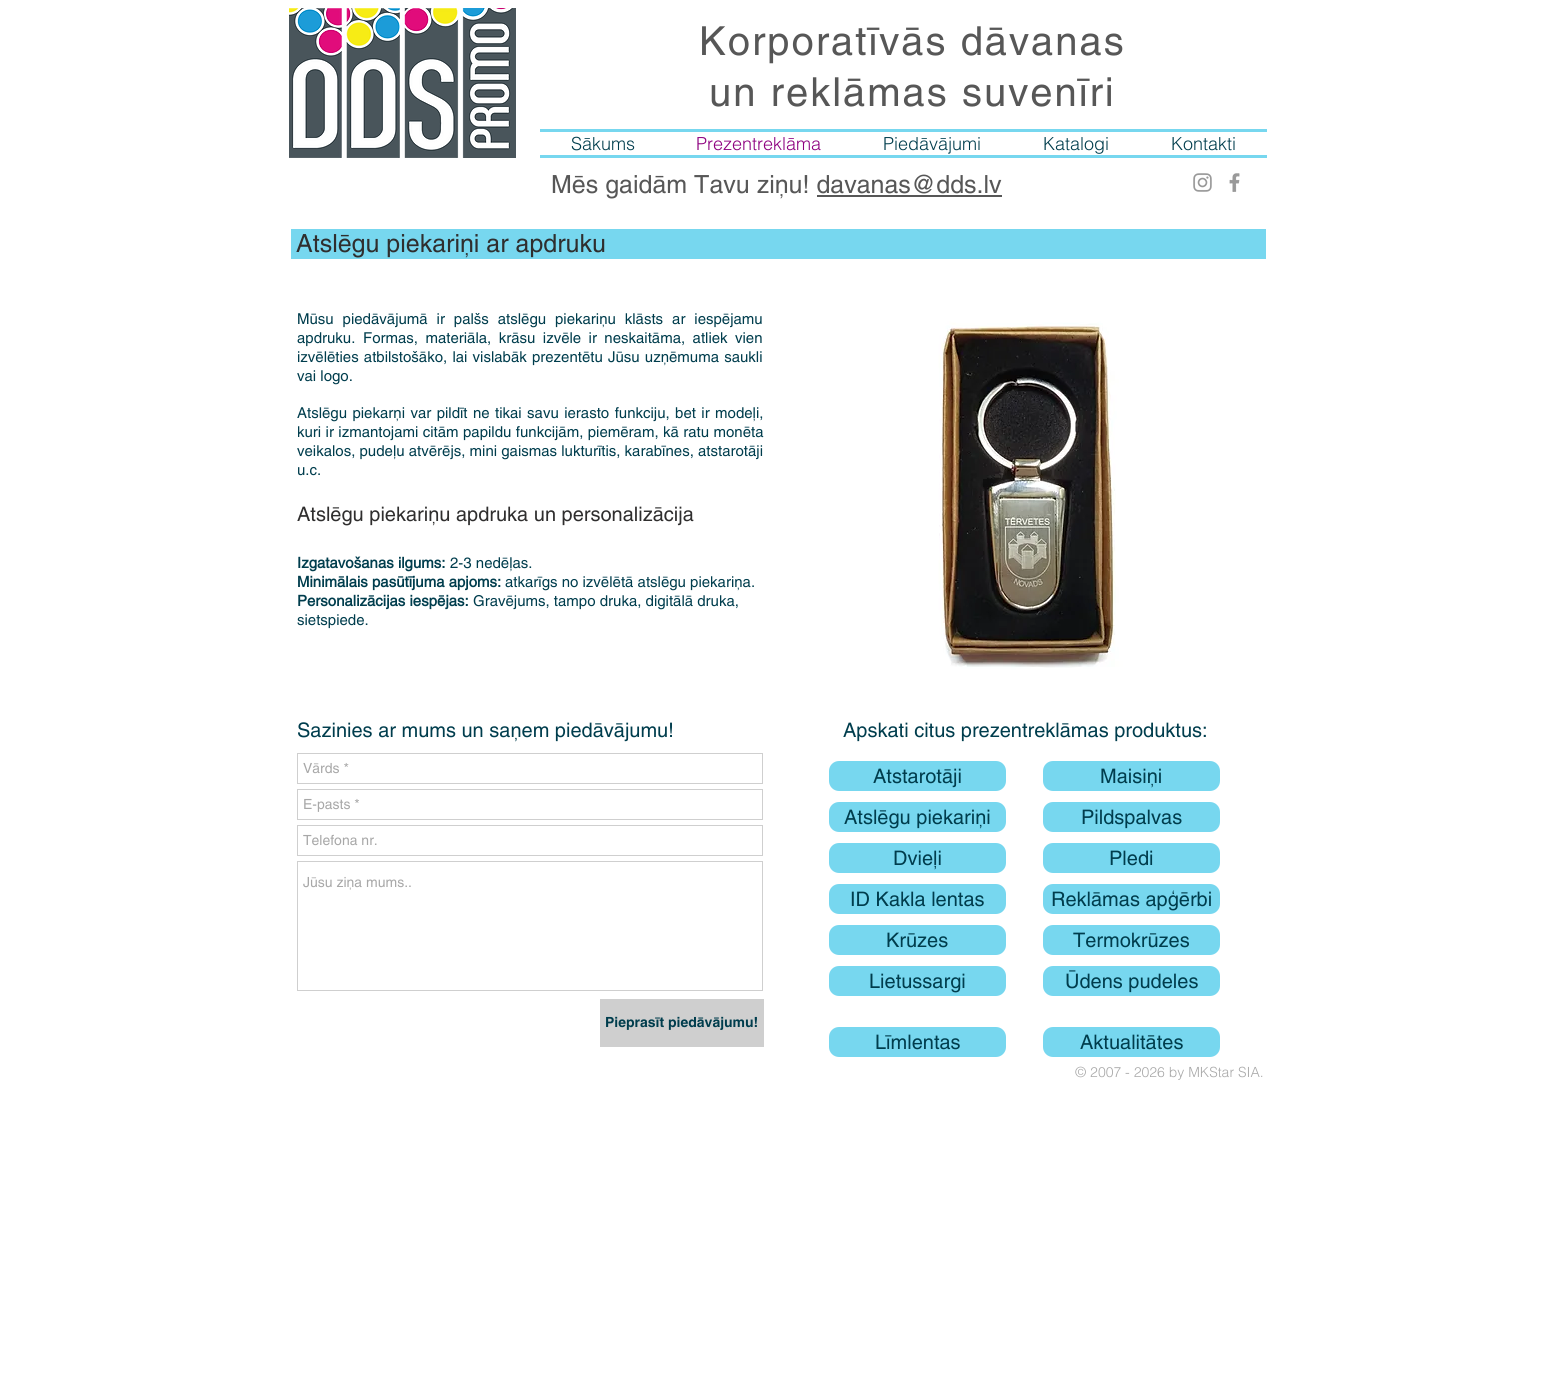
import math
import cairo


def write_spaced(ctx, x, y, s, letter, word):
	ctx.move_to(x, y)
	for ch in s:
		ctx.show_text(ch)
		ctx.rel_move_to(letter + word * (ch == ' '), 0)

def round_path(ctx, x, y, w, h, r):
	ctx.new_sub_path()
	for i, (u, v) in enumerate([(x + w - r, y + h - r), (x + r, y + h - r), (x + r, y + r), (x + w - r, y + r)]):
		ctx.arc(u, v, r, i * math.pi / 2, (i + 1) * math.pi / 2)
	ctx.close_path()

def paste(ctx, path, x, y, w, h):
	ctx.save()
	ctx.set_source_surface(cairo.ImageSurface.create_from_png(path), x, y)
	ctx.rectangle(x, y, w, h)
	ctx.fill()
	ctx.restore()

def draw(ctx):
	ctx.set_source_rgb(1, 1, 1)
	ctx.paint()
	paste(ctx, 'media/1.png', 289, 8, 227, 150)
	ctx.select_font_face('helvetica')
	ctx.set_font_size(40)
	ctx.set_source_rgb(0.341, 0.341, 0.341)
	write_spaced(ctx, 699, 55, 'Korporatīvās dāvanas', 2, 0)
	write_spaced(ctx, 709, 106, 'un reklāmas suvenīri', 2, 0)
	ctx.set_source_rgb(0.467, 0.843, 0.937)
	ctx.rectangle(540, 129, 727, 3)
	ctx.fill()
	ctx.rectangle(540, 155, 727, 3)
	ctx.fill()
	ctx.select_font_face('helvetica Light')
	ctx.set_font_size(18)
	ctx.set_source_rgb(0, 0.239, 0.302)
	ctx.move_to(571, 150)
	ctx.show_text('Sākums')
	ctx.set_source_rgb(0.553, 0, 0.498)
	ctx.move_to(696, 150)
	ctx.show_text('Prezentreklāma')
	ctx.set_source_rgb(0, 0.239, 0.302)
	for x, y, s in [
		(883, 150, 'Piedāvājumi'),
		(1043, 150, 'Katalogi'),
		(1171, 150, 'Kontakti'),
	]:
		ctx.move_to(x, y)
		ctx.show_text(s)
	ctx.select_font_face('helvetica')
	ctx.set_font_size(25)
	ctx.set_source_rgb(0.341, 0.341, 0.341)
	ctx.move_to(551, 193)
	ctx.show_text('Mēs gaidām Tavu ziņu! davanas@dds.lv')
	ctx.rectangle(817, 195, 185, 2)
	ctx.fill()
	paste(ctx, 'media/2.png', 1193, 173, 19, 19)
	paste(ctx, 'media/3.png', 1229, 173, 11, 19)
	ctx.set_source_rgb(0.467, 0.843, 0.937)
	ctx.rectangle(291, 229, 975, 30)
	ctx.fill()
	ctx.set_source_rgb(0.184, 0.18, 0.18)
	ctx.move_to(296, 252)
	ctx.show_text('Atslēgu piekariņi ar apdruku')
	ctx.set_font_size(15)
	ctx.set_source_rgb(0, 0.239, 0.302)
	write_spaced(ctx, 297, 324, 'Mūsu piedāvājumā ir palšs atslēgu piekariņu klāsts ar iespējamu', 0, 4.75)
	ctx.move_to(297, 343)
	ctx.show_text('apdruku.')
	write_spaced(ctx, 363, 343, 'Formas, materiāla, krāsu izvēle ir neskaitāma, atliek vien', 0, 3.25)
	write_spaced(ctx, 297, 362, 'izvēlēties atbilstošāko, lai vislabāk prezentētu Jūsu uzņēmuma saukli', 0, 1)
	ctx.move_to(297, 381)
	ctx.show_text('vai logo.')
	write_spaced(ctx, 297, 418, 'Atslēgu piekarņi var pildīt ne tikai savu ierasto funkciju, bet ir modeļi,', 0, 1.25)
	write_spaced(ctx, 297, 437, 'kuri ir izmantojami citām papildu funkcijām, piemēram, kā ratu monēta', 0, 0.25)
	ctx.move_to(297, 456)
	ctx.show_text('veikalos, pudeļu atvērējs, mini gaismas lukturītis, karabīnes, atstarotāji')
	ctx.move_to(297, 475)
	ctx.show_text('u.c.')
	paste(ctx, 'media/4.png', 787, 283, 477, 406)
	ctx.set_font_size(20)
	ctx.set_source_rgb(0.184, 0.18, 0.18)
	ctx.move_to(297, 521)
	ctx.show_text('Atslēgu piekariņu apdruka un personalizācija')
	ctx.select_font_face('helvetica', cairo.FONT_SLANT_NORMAL, cairo.FONT_WEIGHT_BOLD)
	ctx.set_font_size(15)
	ctx.set_source_rgb(0, 0.239, 0.302)
	ctx.move_to(297, 568)
	ctx.show_text('Izgatavošanas ilgums:')
	ctx.select_font_face('helvetica')
	ctx.move_to(450, 568)
	ctx.show_text('2-3 nedēļas.')
	ctx.select_font_face('helvetica', cairo.FONT_SLANT_NORMAL, cairo.FONT_WEIGHT_BOLD)
	ctx.move_to(297, 587)
	ctx.show_text('Minimālais pasūtījuma apjoms:')
	ctx.select_font_face('helvetica')
	ctx.move_to(505, 587)
	ctx.show_text('atkarīgs no izvēlētā atslēgu piekariņa.')
	ctx.select_font_face('helvetica', cairo.FONT_SLANT_NORMAL, cairo.FONT_WEIGHT_BOLD)
	ctx.move_to(297, 606)
	ctx.show_text('Personalizācijas iespējas:')
	ctx.select_font_face('helvetica')
	ctx.move_to(473, 606)
	ctx.show_text('Gravējums, tampo druka, digitālā druka,')
	ctx.move_to(297, 625)
	ctx.show_text('sietspiede.')
	ctx.set_font_size(20)
	ctx.move_to(297, 737)
	ctx.show_text('Sazinies ar mums un saņem piedāvājumu!')
	ctx.move_to(843, 737)
	ctx.show_text('Apskati citus prezentreklāmas produktus:')
	ctx.rectangle(297.5, 753.5, 465, 30)
	ctx.set_source_rgb(0.812, 0.812, 0.812)
	ctx.set_line_width(1)
	ctx.stroke()
	ctx.set_font_size(14)
	ctx.set_source_rgb(0.659, 0.659, 0.659)
	ctx.move_to(303, 773)
	ctx.show_text('Vārds *')
	ctx.rectangle(297.5, 789.5, 465, 30)
	ctx.set_source_rgb(0.812, 0.812, 0.812)
	ctx.stroke()
	ctx.set_source_rgb(0.659, 0.659, 0.659)
	ctx.move_to(303, 809)
	ctx.show_text('E-pasts *')
	ctx.rectangle(297.5, 825.5, 465, 30)
	ctx.set_source_rgb(0.812, 0.812, 0.812)
	ctx.stroke()
	ctx.set_source_rgb(0.659, 0.659, 0.659)
	ctx.move_to(303, 845)
	ctx.show_text('Telefona nr.')
	ctx.rectangle(297.5, 861.5, 465, 129)
	ctx.set_source_rgb(0.812, 0.812, 0.812)
	ctx.stroke()
	ctx.set_source_rgb(0.659, 0.659, 0.659)
	ctx.move_to(303, 887)
	ctx.show_text('Jūsu ziņa mums..')
	ctx.set_source_rgb(0.812, 0.812, 0.812)
	ctx.rectangle(600, 999, 164, 48)
	ctx.fill()
	ctx.select_font_face('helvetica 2', cairo.FONT_SLANT_NORMAL, cairo.FONT_WEIGHT_BOLD)
	ctx.set_source_rgb(0, 0.239, 0.302)
	ctx.move_to(605, 1027)
	ctx.show_text('Pieprasīt piedāvājumu!')
	ctx.set_source_rgb(0.467, 0.843, 0.937)
	round_path(ctx, 829, 761, 177, 30, 10)
	ctx.fill()
	ctx.select_font_face('helvetica')
	ctx.set_font_size(20)
	ctx.set_source_rgb(0, 0.239, 0.302)
	ctx.move_to(873, 783)
	ctx.show_text('Atstarotāji')
	ctx.set_source_rgb(0.467, 0.843, 0.937)
	round_path(ctx, 1043, 761, 177, 30, 10)
	ctx.fill()
	ctx.set_source_rgb(0, 0.239, 0.302)
	ctx.move_to(1100, 783)
	ctx.show_text('Maisiņi')
	ctx.set_source_rgb(0.467, 0.843, 0.937)
	round_path(ctx, 829, 802, 177, 30, 10)
	ctx.fill()
	ctx.set_source_rgb(0, 0.239, 0.302)
	ctx.move_to(844, 824)
	ctx.show_text('Atslēgu piekariņi')
	ctx.set_source_rgb(0.467, 0.843, 0.937)
	round_path(ctx, 1043, 802, 177, 30, 10)
	ctx.fill()
	ctx.set_source_rgb(0, 0.239, 0.302)
	ctx.move_to(1081, 824)
	ctx.show_text('Pildspalvas')
	ctx.set_source_rgb(0.467, 0.843, 0.937)
	round_path(ctx, 829, 843, 177, 30, 10)
	ctx.fill()
	ctx.set_source_rgb(0, 0.239, 0.302)
	ctx.move_to(893, 865)
	ctx.show_text('Dvieļi')
	ctx.set_source_rgb(0.467, 0.843, 0.937)
	round_path(ctx, 1043, 843, 177, 30, 10)
	ctx.fill()
	ctx.set_source_rgb(0, 0.239, 0.302)
	ctx.move_to(1109, 865)
	ctx.show_text('Pledi')
	ctx.set_source_rgb(0.467, 0.843, 0.937)
	round_path(ctx, 829, 884, 177, 30, 10)
	ctx.fill()
	ctx.set_source_rgb(0, 0.239, 0.302)
	ctx.move_to(850, 906)
	ctx.show_text('ID Kakla lentas')
	ctx.set_source_rgb(0.467, 0.843, 0.937)
	round_path(ctx, 1043, 884, 177, 30, 10)
	ctx.fill()
	ctx.set_source_rgb(0, 0.239, 0.302)
	ctx.move_to(1051, 906)
	ctx.show_text('Reklāmas apģērbi')
	ctx.set_source_rgb(0.467, 0.843, 0.937)
	round_path(ctx, 829, 925, 177, 30, 10)
	ctx.fill()
	ctx.set_source_rgb(0, 0.239, 0.302)
	ctx.move_to(886, 947)
	ctx.show_text('Krūzes')
	ctx.set_source_rgb(0.467, 0.843, 0.937)
	round_path(ctx, 1043, 925, 177, 30, 10)
	ctx.fill()
	ctx.set_source_rgb(0, 0.239, 0.302)
	ctx.move_to(1073, 947)
	ctx.show_text('Termokrūzes')
	ctx.set_source_rgb(0.467, 0.843, 0.937)
	round_path(ctx, 829, 966, 177, 30, 10)
	ctx.fill()
	ctx.set_source_rgb(0, 0.239, 0.302)
	ctx.move_to(869, 988)
	ctx.show_text('Lietussargi')
	ctx.set_source_rgb(0.467, 0.843, 0.937)
	round_path(ctx, 1043, 966, 177, 30, 10)
	ctx.fill()
	ctx.set_source_rgb(0, 0.239, 0.302)
	ctx.move_to(1065, 988)
	ctx.show_text('Ūdens pudeles')
	ctx.set_source_rgb(0.467, 0.843, 0.937)
	round_path(ctx, 829, 1027, 177, 30, 10)
	ctx.fill()
	ctx.set_source_rgb(0, 0.239, 0.302)
	ctx.move_to(875, 1049)
	ctx.show_text('Līmlentas')
	ctx.set_source_rgb(0.467, 0.843, 0.937)
	round_path(ctx, 1043, 1027, 177, 30, 10)
	ctx.fill()
	ctx.set_source_rgb(0, 0.239, 0.302)
	ctx.move_to(1080, 1049)
	ctx.show_text('Aktualitātes')
	ctx.select_font_face('helvetica Light')
	ctx.set_font_size(14)
	ctx.set_source_rgb(0.659, 0.659, 0.659)
	ctx.move_to(1075, 1077)
	ctx.show_text('© 2007 - 2026 by MKStar SIA.')


surface = cairo.ImageSurface(cairo.FORMAT_RGB24, 1554, 1378)
ctx = cairo.Context(surface)
options = cairo.FontOptions()
options.set_hint_metrics(cairo.HINT_METRICS_OFF)
options.set_hint_style(cairo.HINT_STYLE_NONE)
ctx.set_font_options(options)
ctx.set_miter_limit(4)
draw(ctx)
surface.write_to_png('image.png')
